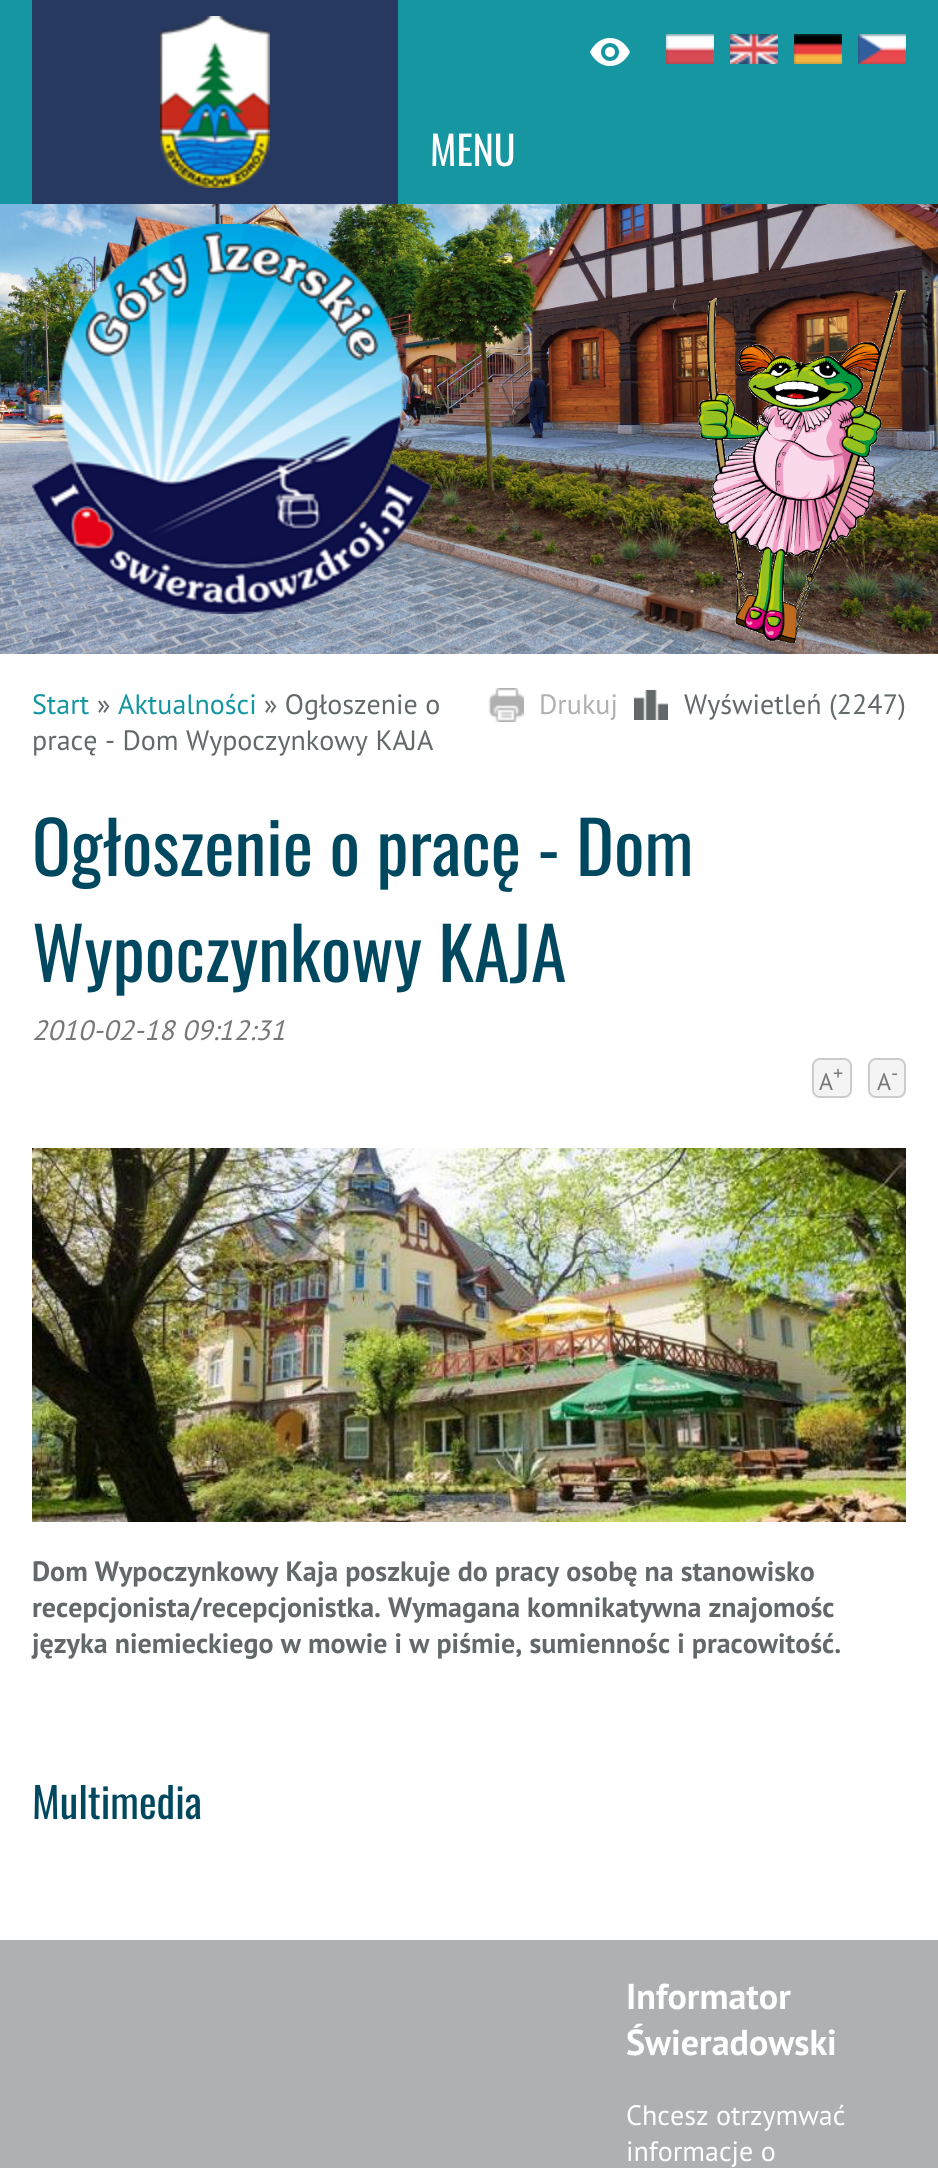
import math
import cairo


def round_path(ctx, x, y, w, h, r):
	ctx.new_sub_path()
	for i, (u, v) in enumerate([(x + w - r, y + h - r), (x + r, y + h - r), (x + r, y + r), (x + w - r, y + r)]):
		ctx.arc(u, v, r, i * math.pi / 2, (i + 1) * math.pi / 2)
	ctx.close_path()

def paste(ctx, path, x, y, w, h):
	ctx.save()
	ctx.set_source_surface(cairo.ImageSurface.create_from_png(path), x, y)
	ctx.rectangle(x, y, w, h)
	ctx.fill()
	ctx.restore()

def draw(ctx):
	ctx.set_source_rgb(1, 1, 1)
	ctx.paint()
	ctx.set_source_rgb(0.086, 0.588, 0.631)
	ctx.rectangle(0, 0, 938, 204)
	ctx.fill()
	ctx.set_source_rgb(0.153, 0.224, 0.38)
	ctx.rectangle(32, 0, 366, 204)
	ctx.fill()
	paste(ctx, 'media/1.png', 160, 16, 110, 172)
	paste(ctx, 'media/2.png', 590, 38, 40, 28)
	paste(ctx, 'media/3.png', 666, 34, 48, 30)
	paste(ctx, 'media/4.png', 730, 34, 48, 30)
	paste(ctx, 'media/5.png', 794, 34, 48, 30)
	paste(ctx, 'media/6.png', 858, 34, 48, 30)
	ctx.select_font_face('Oswald')
	ctx.set_font_size(40)
	ctx.set_source_rgb(1, 1, 1)
	ctx.move_to(430, 166)
	ctx.show_text('MENU')
	paste(ctx, 'media/7.png', 0, 204, 938, 450)
	paste(ctx, 'media/8.png', 32, 224, 400, 390)
	paste(ctx, 'media/9.png', 698, 290, 208, 354)
	ctx.select_font_face('PT Sans')
	ctx.set_font_size(28)
	ctx.set_source_rgb(0.082, 0.588, 0.631)
	ctx.move_to(32, 714)
	ctx.show_text('Start')
	ctx.set_source_rgb(0.388, 0.408, 0.416)
	ctx.move_to(97, 714)
	ctx.show_text('»')
	ctx.set_source_rgb(0.082, 0.588, 0.631)
	ctx.move_to(118, 714)
	ctx.show_text('Aktualności')
	ctx.set_source_rgb(0.388, 0.408, 0.416)
	ctx.move_to(264, 714)
	ctx.show_text('» Ogłoszenie o')
	ctx.move_to(32, 750)
	ctx.show_text('pracę - Dom Wypoczynkowy KAJA')
	paste(ctx, 'media/10.png', 488, 688, 36, 34)
	ctx.set_source_rgb(0.69, 0.69, 0.69)
	ctx.move_to(539, 714)
	ctx.show_text('Drukuj')
	paste(ctx, 'media/11.png', 634, 690, 34, 30)
	ctx.set_source_rgb(0.388, 0.408, 0.416)
	ctx.move_to(684, 714)
	ctx.show_text('Wyświetleń (2247)')
	ctx.select_font_face('Oswald')
	ctx.set_font_size(72)
	ctx.set_source_rgb(0, 0.282, 0.373)
	ctx.move_to(32, 876)
	ctx.show_text('Ogłoszenie o pracę - Dom')
	ctx.move_to(32, 982)
	ctx.show_text('Wypoczynkowy KAJA')
	ctx.select_font_face('PT Sans', cairo.FONT_SLANT_ITALIC)
	ctx.set_font_size(28)
	ctx.set_source_rgb(0.467, 0.467, 0.467)
	ctx.move_to(32, 1040)
	ctx.show_text('2010-02-18 09:12:31')
	ctx.set_source_rgb(0.957, 0.957, 0.957)
	round_path(ctx, 813, 1059, 38, 38, 7)
	ctx.fill_preserve()
	ctx.set_source_rgb(0.8, 0.8, 0.8)
	ctx.stroke()
	ctx.select_font_face('PT Sans')
	ctx.set_font_size(24)
	ctx.set_source_rgb(0.467, 0.467, 0.467)
	ctx.move_to(819, 1090)
	ctx.show_text('A')
	ctx.set_font_size(20)
	ctx.move_to(833, 1080)
	ctx.show_text('+')
	ctx.set_source_rgb(0.957, 0.957, 0.957)
	round_path(ctx, 869, 1059, 36, 38, 7)
	ctx.fill_preserve()
	ctx.set_source_rgb(0.8, 0.8, 0.8)
	ctx.stroke()
	ctx.set_font_size(24)
	ctx.set_source_rgb(0.467, 0.467, 0.467)
	ctx.move_to(877, 1090)
	ctx.show_text('A')
	ctx.set_font_size(20)
	ctx.move_to(891, 1080)
	ctx.show_text('-')
	paste(ctx, 'media/12.png', 32, 1148, 874, 374)
	ctx.select_font_face('PT Sans', cairo.FONT_SLANT_NORMAL, cairo.FONT_WEIGHT_BOLD)
	ctx.set_font_size(28)
	ctx.set_source_rgb(0.388, 0.408, 0.416)
	for x, y, s in [
		(32, 1581, 'Dom Wypoczynkowy Kaja poszkuje do pracy osobę na stanowisko'),
		(32, 1617, 'recepcjonista/recepcjonistka. Wymagana komnikatywna znajomośc'),
		(32, 1653, 'języka niemieckiego w mowie i w piśmie, sumiennośc i pracowitość.'),
	]:
		ctx.move_to(x, y)
		ctx.show_text(s)
	ctx.select_font_face('Oswald')
	ctx.set_font_size(42)
	ctx.set_source_rgb(0, 0.282, 0.373)
	ctx.move_to(32, 1819)
	ctx.show_text('Multimedia')
	ctx.set_source_rgb(0.686, 0.69, 0.698)
	ctx.rectangle(0, 1940, 938, 228)
	ctx.fill()
	ctx.select_font_face('PT Sans', cairo.FONT_SLANT_NORMAL, cairo.FONT_WEIGHT_BOLD)
	ctx.set_font_size(36)
	ctx.set_source_rgb(1, 1, 1)
	ctx.move_to(626, 2009)
	ctx.show_text('Informator')
	ctx.move_to(626, 2055)
	ctx.show_text('Świeradowski')
	ctx.select_font_face('PT Sans')
	ctx.set_font_size(28)
	ctx.move_to(626, 2125)
	ctx.show_text('Chcesz otrzymwać')
	ctx.move_to(626, 2161)
	ctx.show_text('informacje o')


surface = cairo.ImageSurface(cairo.FORMAT_RGB24, 938, 2168)
ctx = cairo.Context(surface)
options = cairo.FontOptions()
options.set_hint_metrics(cairo.HINT_METRICS_OFF)
options.set_hint_style(cairo.HINT_STYLE_NONE)
ctx.set_font_options(options)
ctx.set_miter_limit(4)
draw(ctx)
surface.write_to_png('image.png')
